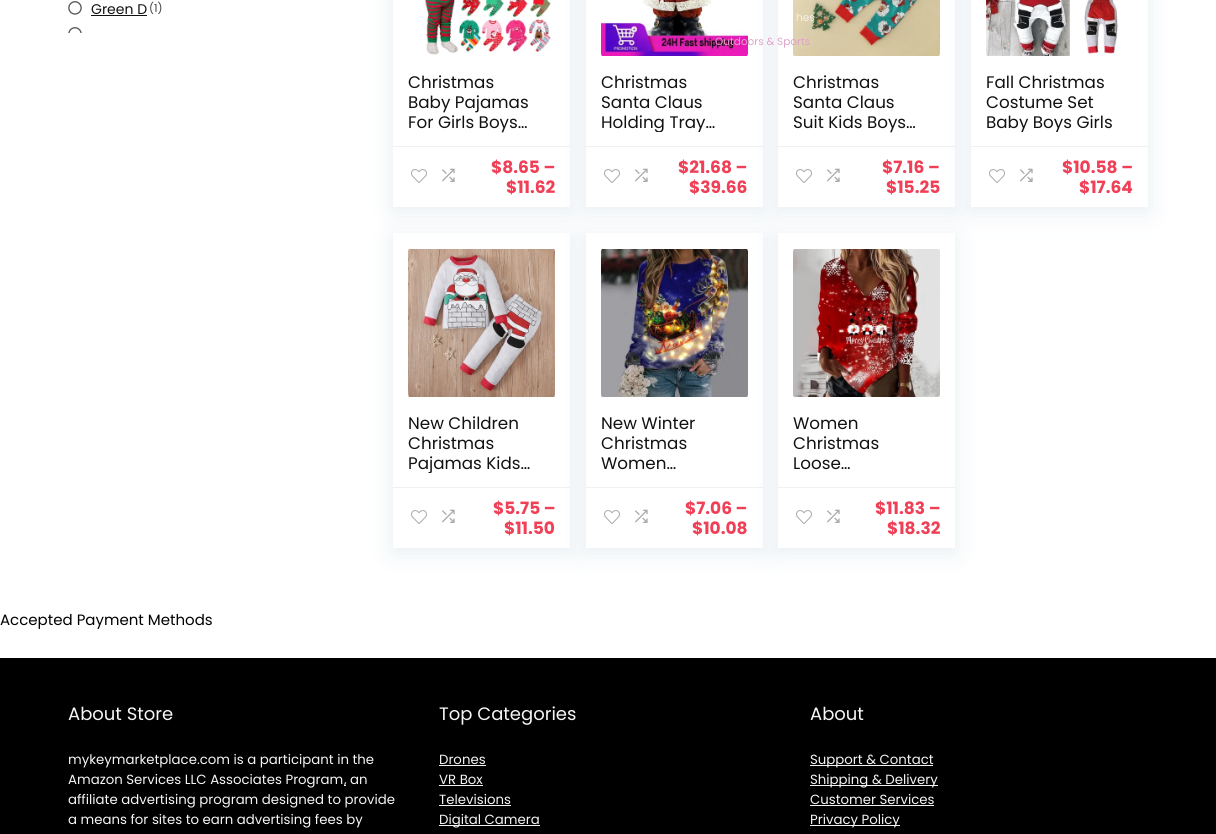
import math
import cairo


def round_path(ctx, x, y, w, h, r):
	ctx.new_sub_path()
	for i, (u, v) in enumerate([(x + w - r, y + h - r), (x + r, y + h - r), (x + r, y + r), (x + w - r, y + r)]):
		ctx.arc(u, v, r, i * math.pi / 2, (i + 1) * math.pi / 2)
	ctx.close_path()

def blur_box(ctx, x, y, w, h, r, blur, alpha):
	ctx.push_group_with_content(cairo.CONTENT_ALPHA)
	ctx.set_operator(cairo.OPERATOR_SOURCE)
	for i in range(15, -16, -2):
		e = blur * i / 6
		if min(w, h) + 2 * e > 0:
			ctx.set_source_rgba(0, 0, 0, alpha * math.erfc((i - 1) / 8.5) / 2)
			round_path(ctx, x - e, y - e, w + 2 * e, h + 2 * e, max(0, min(r + e + blur * .6, min(w, h) / 2 + e)))
			ctx.fill()
	ctx.mask(ctx.pop_group())

def paste(ctx, path, x, y, w, h):
	ctx.save()
	ctx.set_source_surface(cairo.ImageSurface.create_from_png(path), x, y)
	ctx.rectangle(x, y, w, h)
	ctx.fill()
	ctx.restore()

def draw(ctx):
	ctx.set_source_rgb(1, 1, 1)
	ctx.paint()
	paste(ctx, 'media/1.png', 68, 1, 14, 14)
	ctx.select_font_face('Poppins')
	ctx.set_font_size(14)
	ctx.set_source_rgb(0.067, 0.067, 0.067)
	ctx.move_to(91, 14)
	ctx.show_text('Green D')
	ctx.rectangle(91, 15, 56, 1)
	ctx.fill()
	ctx.set_font_size(11)
	ctx.set_source_rgb(0.255, 0.255, 0.255)
	ctx.move_to(149, 12)
	ctx.show_text('(1)')
	paste(ctx, 'media/2.png', 68, 27, 14, 6)
	ctx.save()
	ctx.set_fill_rule(cairo.FILL_RULE_EVEN_ODD)
	ctx.new_path()
	ctx.move_to(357, 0)
	ctx.line_to(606, 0)
	ctx.line_to(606, 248)
	ctx.line_to(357, 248)
	ctx.close_path()
	ctx.move_to(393, -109)
	ctx.line_to(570, -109)
	ctx.line_to(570, 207)
	ctx.line_to(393, 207)
	ctx.close_path()
	ctx.clip()
	ctx.set_source_rgb(0.737, 0.812, 0.859)
	blur_box(ctx, 393, -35, 177, 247, 0, 11.5, 0.35)
	ctx.restore()
	paste(ctx, 'media/3.png', 424, 0, 128, 55)
	ctx.set_font_size(16.75)
	ctx.set_source_rgb(0.067, 0.067, 0.067)
	for x, y, s in [
		(408, 88, 'Christmas'),
		(408, 108, 'Baby Pajamas'),
		(408, 128, 'For Girls Boys…'),
	]:
		ctx.move_to(x, y)
		ctx.show_text(s)
	ctx.set_source_rgb(0.941, 0.941, 0.941)
	ctx.rectangle(393, 146, 177, 1)
	ctx.fill()
	paste(ctx, 'media/4.png', 411, 169, 16, 14)
	paste(ctx, 'media/5.png', 442, 168, 13, 14)
	ctx.select_font_face('Poppins', cairo.FONT_SLANT_NORMAL, cairo.FONT_WEIGHT_BOLD)
	ctx.set_font_size(17)
	ctx.set_source_rgb(0.941, 0.251, 0.341)
	ctx.move_to(491, 173)
	ctx.show_text('$8.65 –')
	ctx.move_to(506, 193)
	ctx.show_text('$11.62')
	ctx.set_source_rgb(0.737, 0.812, 0.859)
	blur_box(ctx, 586, -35, 177, 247, 0, 11.5, 0.35)
	ctx.set_source_rgb(1, 1, 1)
	ctx.rectangle(586, 0, 177, 207)
	ctx.fill()
	paste(ctx, 'media/6.png', 601, 0, 147, 56)
	ctx.select_font_face('Poppins')
	ctx.set_font_size(16.75)
	ctx.set_source_rgb(0.067, 0.067, 0.067)
	ctx.move_to(601, 88)
	ctx.show_text('Christmas')
	ctx.move_to(601, 108)
	ctx.show_text('Santa Claus')
	ctx.save()
	ctx.rectangle(601, 72, 132, 60)
	ctx.clip()
	ctx.move_to(601, 128)
	ctx.show_text('Holding Tray…')
	ctx.restore()
	ctx.set_source_rgb(0.941, 0.941, 0.941)
	ctx.rectangle(586, 146, 177, 1)
	ctx.fill()
	paste(ctx, 'media/4.png', 604, 169, 16, 14)
	paste(ctx, 'media/5.png', 635, 168, 13, 14)
	ctx.select_font_face('Poppins', cairo.FONT_SLANT_NORMAL, cairo.FONT_WEIGHT_BOLD)
	ctx.set_font_size(17)
	ctx.set_source_rgb(0.941, 0.251, 0.341)
	ctx.move_to(678, 173)
	ctx.show_text('$21.68 –')
	ctx.move_to(689, 193)
	ctx.show_text('$39.66')
	ctx.set_source_rgb(0.737, 0.812, 0.859)
	blur_box(ctx, 778, -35, 177, 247, 0, 11.5, 0.35)
	ctx.set_source_rgb(1, 1, 1)
	ctx.rectangle(778, 0, 177, 207)
	ctx.fill()
	paste(ctx, 'media/7.png', 793, 0, 147, 56)
	ctx.select_font_face('Poppins')
	ctx.set_font_size(16.75)
	ctx.set_source_rgb(0.067, 0.067, 0.067)
	for x, y, s in [
		(793, 88, 'Christmas'),
		(793, 108, 'Santa Claus'),
		(793, 128, 'Suit Kids Boys…'),
	]:
		ctx.move_to(x, y)
		ctx.show_text(s)
	ctx.set_source_rgb(0.941, 0.941, 0.941)
	ctx.rectangle(778, 146, 177, 1)
	ctx.fill()
	paste(ctx, 'media/4.png', 796, 169, 16, 14)
	paste(ctx, 'media/5.png', 827, 168, 13, 14)
	ctx.select_font_face('Poppins', cairo.FONT_SLANT_NORMAL, cairo.FONT_WEIGHT_BOLD)
	ctx.set_font_size(17)
	ctx.set_source_rgb(0.941, 0.251, 0.341)
	ctx.move_to(882, 173)
	ctx.show_text('$7.16 –')
	ctx.move_to(886, 193)
	ctx.show_text('$15.25')
	ctx.set_source_rgb(0.737, 0.812, 0.859)
	blur_box(ctx, 971, -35, 177, 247, 0, 11.5, 0.35)
	ctx.set_source_rgb(1, 1, 1)
	ctx.rectangle(971, 0, 177, 207)
	ctx.fill()
	paste(ctx, 'media/8.png', 986, 0, 133, 56)
	ctx.select_font_face('Poppins')
	ctx.set_font_size(16.75)
	ctx.set_source_rgb(0.067, 0.067, 0.067)
	ctx.move_to(986, 88)
	ctx.show_text('Fall Christmas')
	ctx.move_to(986, 108)
	ctx.show_text('Costume Set')
	ctx.save()
	ctx.rectangle(986, 72, 132, 60)
	ctx.clip()
	ctx.move_to(986, 128)
	ctx.show_text('Baby Boys Girls')
	ctx.restore()
	ctx.set_source_rgb(0.941, 0.941, 0.941)
	ctx.rectangle(971, 146, 177, 1)
	ctx.fill()
	paste(ctx, 'media/4.png', 989, 169, 16, 14)
	paste(ctx, 'media/5.png', 1020, 168, 13, 14)
	ctx.select_font_face('Poppins', cairo.FONT_SLANT_NORMAL, cairo.FONT_WEIGHT_BOLD)
	ctx.set_font_size(17)
	ctx.set_source_rgb(0.941, 0.251, 0.341)
	ctx.move_to(1062, 173)
	ctx.show_text('$10.58 –')
	ctx.move_to(1079, 193)
	ctx.show_text('$17.64')
	ctx.save()
	ctx.set_fill_rule(cairo.FILL_RULE_EVEN_ODD)
	ctx.new_path()
	ctx.move_to(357, 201)
	ctx.line_to(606, 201)
	ctx.line_to(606, 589)
	ctx.line_to(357, 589)
	ctx.close_path()
	ctx.move_to(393, 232)
	ctx.line_to(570, 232)
	ctx.line_to(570, 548)
	ctx.line_to(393, 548)
	ctx.close_path()
	ctx.clip()
	ctx.set_source_rgb(0.737, 0.812, 0.859)
	blur_box(ctx, 393, 237, 177, 316, 0, 11.5, 0.35)
	ctx.restore()
	ctx.set_source_rgb(0.973, 0.973, 0.973)
	ctx.rectangle(393, 232, 177, 1)
	ctx.fill()
	paste(ctx, 'media/9.png', 408, 249, 147, 148)
	ctx.select_font_face('Poppins')
	ctx.set_font_size(16.75)
	ctx.set_source_rgb(0.067, 0.067, 0.067)
	ctx.move_to(408, 429)
	ctx.show_text('New Children')
	ctx.move_to(408, 449)
	ctx.show_text('Christmas')
	ctx.save()
	ctx.rectangle(408, 413, 132, 60)
	ctx.clip()
	ctx.move_to(408, 469)
	ctx.show_text('Pajamas Kids…')
	ctx.restore()
	ctx.set_source_rgb(0.941, 0.941, 0.941)
	ctx.rectangle(393, 487, 177, 1)
	ctx.fill()
	paste(ctx, 'media/4.png', 411, 510, 16, 14)
	paste(ctx, 'media/5.png', 442, 509, 13, 14)
	ctx.select_font_face('Poppins', cairo.FONT_SLANT_NORMAL, cairo.FONT_WEIGHT_BOLD)
	ctx.set_font_size(17)
	ctx.set_source_rgb(0.941, 0.251, 0.341)
	ctx.move_to(493, 514)
	ctx.show_text('$5.75 –')
	ctx.move_to(504, 534)
	ctx.show_text('$11.50')
	ctx.set_source_rgb(0.737, 0.812, 0.859)
	blur_box(ctx, 586, 237, 177, 316, 0, 11.5, 0.35)
	ctx.set_source_rgb(1, 1, 1)
	ctx.rectangle(586, 233, 177, 315)
	ctx.fill()
	ctx.set_source_rgb(0.973, 0.973, 0.973)
	ctx.rectangle(586, 232, 177, 1)
	ctx.fill()
	paste(ctx, 'media/10.png', 601, 249, 147, 148)
	ctx.select_font_face('Poppins')
	ctx.set_font_size(16.75)
	ctx.set_source_rgb(0.067, 0.067, 0.067)
	for x, y, s in [
		(601, 429, 'New Winter'),
		(601, 449, 'Christmas'),
		(601, 469, 'Women…'),
	]:
		ctx.move_to(x, y)
		ctx.show_text(s)
	ctx.set_source_rgb(0.941, 0.941, 0.941)
	ctx.rectangle(586, 487, 177, 1)
	ctx.fill()
	paste(ctx, 'media/4.png', 604, 510, 16, 14)
	paste(ctx, 'media/5.png', 635, 509, 13, 14)
	ctx.select_font_face('Poppins', cairo.FONT_SLANT_NORMAL, cairo.FONT_WEIGHT_BOLD)
	ctx.set_font_size(17)
	ctx.set_source_rgb(0.941, 0.251, 0.341)
	ctx.move_to(685, 514)
	ctx.show_text('$7.06 –')
	ctx.move_to(692, 534)
	ctx.show_text('$10.08')
	ctx.set_source_rgb(0.737, 0.812, 0.859)
	blur_box(ctx, 778, 237, 177, 316, 0, 11.5, 0.35)
	ctx.set_source_rgb(1, 1, 1)
	ctx.rectangle(778, 233, 177, 315)
	ctx.fill()
	ctx.set_source_rgb(0.973, 0.973, 0.973)
	ctx.rectangle(778, 232, 177, 1)
	ctx.fill()
	paste(ctx, 'media/11.png', 793, 249, 147, 148)
	ctx.select_font_face('Poppins')
	ctx.set_font_size(16.75)
	ctx.set_source_rgb(0.067, 0.067, 0.067)
	for x, y, s in [
		(793, 429, 'Women'),
		(793, 449, 'Christmas'),
		(793, 469, 'Loose…'),
	]:
		ctx.move_to(x, y)
		ctx.show_text(s)
	ctx.set_source_rgb(0.941, 0.941, 0.941)
	ctx.rectangle(778, 487, 177, 1)
	ctx.fill()
	paste(ctx, 'media/4.png', 796, 510, 16, 14)
	paste(ctx, 'media/5.png', 827, 509, 13, 14)
	ctx.select_font_face('Poppins', cairo.FONT_SLANT_NORMAL, cairo.FONT_WEIGHT_BOLD)
	ctx.set_font_size(17)
	ctx.set_source_rgb(0.941, 0.251, 0.341)
	ctx.move_to(875, 514)
	ctx.show_text('$11.83 –')
	ctx.move_to(887, 534)
	ctx.show_text('$18.32')
	ctx.select_font_face('Poppins')
	ctx.set_font_size(10.5)
	ctx.set_source_rgb(0.957, 0.949, 0.918)
	ctx.move_to(796, 21)
	ctx.show_text('hes')
	ctx.set_source_rgb(0.871, 0.639, 0.78)
	ctx.move_to(715, 45)
	ctx.show_text('Outdoors & Sports')
	ctx.set_font_size(15)
	ctx.set_source_rgb(0, 0, 0)
	ctx.move_to(0, 625)
	ctx.show_text('Accepted Payment Methods')
	ctx.rectangle(0, 658, 1216, 176)
	ctx.fill()
	ctx.set_font_size(18)
	ctx.set_source_rgb(0.961, 0.961, 0.961)
	ctx.move_to(68, 720)
	ctx.show_text('About Store')
	ctx.set_font_size(13.3)
	ctx.move_to(68, 764)
	ctx.show_text('mykeymarketplace.com is a participant in the')
	ctx.move_to(68, 784)
	ctx.show_text('Amazon Services LLC Associates Program')
	ctx.set_source_rgb(0.945, 0.945, 0.945)
	ctx.rectangle(344, 785, 2, 1)
	ctx.fill()
	ctx.set_source_rgb(0.961, 0.961, 0.961)
	for x, y, s in [
		(344, 784, ','),
		(350, 784, 'an'),
		(68, 804, 'affiliate advertising program designed to provide'),
		(68, 824, 'a means for sites to earn advertising fees by'),
	]:
		ctx.move_to(x, y)
		ctx.show_text(s)
	ctx.set_font_size(18)
	ctx.move_to(439, 720)
	ctx.show_text('Top Categories')
	ctx.set_font_size(13.3)
	ctx.move_to(439, 764)
	ctx.show_text('Drones')
	ctx.set_source_rgb(0.945, 0.945, 0.945)
	ctx.rectangle(439, 765, 47, 1)
	ctx.fill()
	ctx.set_source_rgb(0.961, 0.961, 0.961)
	ctx.move_to(439, 784)
	ctx.show_text('VR Box')
	ctx.set_source_rgb(0.945, 0.945, 0.945)
	ctx.rectangle(439, 785, 44, 1)
	ctx.fill()
	ctx.set_source_rgb(0.961, 0.961, 0.961)
	ctx.move_to(439, 804)
	ctx.show_text('Televisions')
	ctx.set_source_rgb(0.945, 0.945, 0.945)
	ctx.rectangle(439, 805, 72, 1)
	ctx.fill()
	ctx.rectangle(439, 825, 101, 1)
	ctx.fill()
	ctx.set_source_rgb(0.961, 0.961, 0.961)
	ctx.move_to(439, 824)
	ctx.show_text('Digital Camera')
	ctx.set_font_size(18)
	ctx.move_to(810, 720)
	ctx.show_text('About')
	ctx.set_source_rgb(0.945, 0.945, 0.945)
	ctx.rectangle(810, 765, 123, 1)
	ctx.fill()
	ctx.set_font_size(13.3)
	ctx.set_source_rgb(0.961, 0.961, 0.961)
	ctx.move_to(810, 764)
	ctx.show_text('Support & Contact')
	ctx.set_source_rgb(0.945, 0.945, 0.945)
	ctx.rectangle(810, 785, 128, 1)
	ctx.fill()
	ctx.set_source_rgb(0.961, 0.961, 0.961)
	ctx.move_to(810, 784)
	ctx.show_text('Shipping & Delivery')
	ctx.move_to(810, 804)
	ctx.show_text('Customer Services')
	ctx.set_source_rgb(0.945, 0.945, 0.945)
	ctx.rectangle(810, 805, 124, 1)
	ctx.fill()
	ctx.rectangle(810, 825, 90, 1)
	ctx.fill()
	ctx.set_source_rgb(0.961, 0.961, 0.961)
	ctx.move_to(810, 824)
	ctx.show_text('Privacy Policy')


surface = cairo.ImageSurface(cairo.FORMAT_RGB24, 1216, 834)
ctx = cairo.Context(surface)
options = cairo.FontOptions()
options.set_hint_metrics(cairo.HINT_METRICS_OFF)
options.set_hint_style(cairo.HINT_STYLE_NONE)
ctx.set_font_options(options)
ctx.set_miter_limit(4)
draw(ctx)
surface.write_to_png('image.png')
